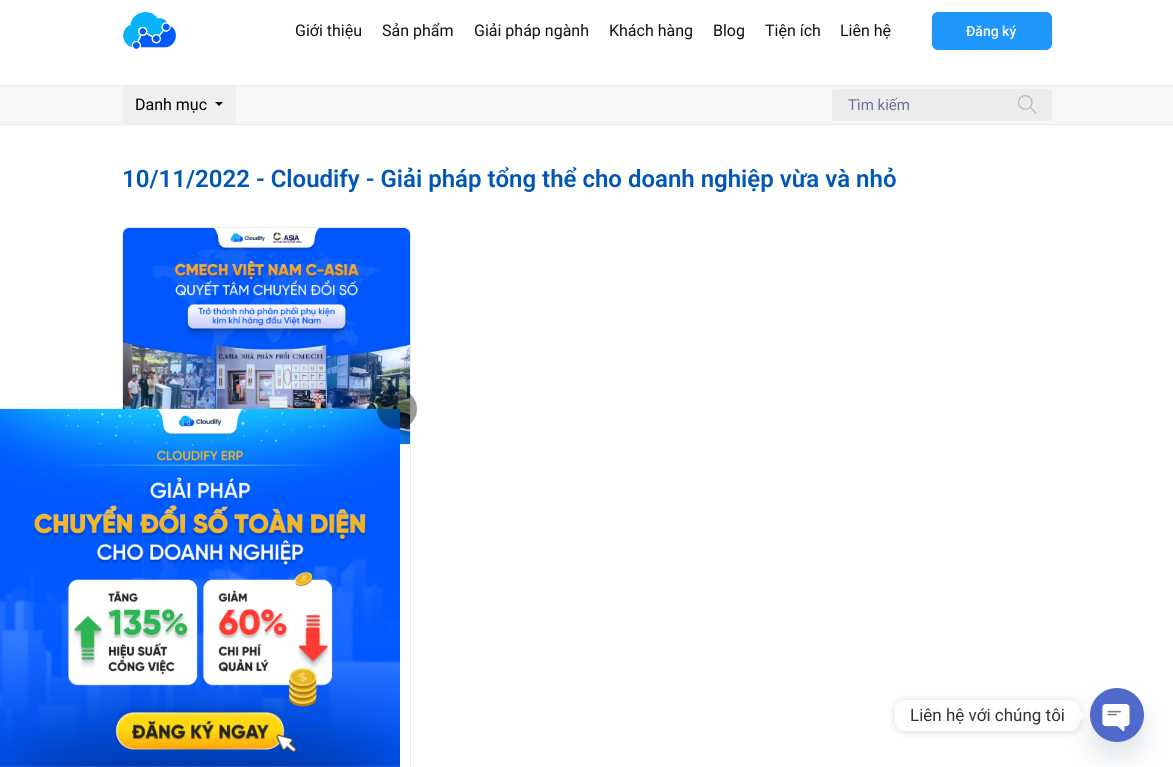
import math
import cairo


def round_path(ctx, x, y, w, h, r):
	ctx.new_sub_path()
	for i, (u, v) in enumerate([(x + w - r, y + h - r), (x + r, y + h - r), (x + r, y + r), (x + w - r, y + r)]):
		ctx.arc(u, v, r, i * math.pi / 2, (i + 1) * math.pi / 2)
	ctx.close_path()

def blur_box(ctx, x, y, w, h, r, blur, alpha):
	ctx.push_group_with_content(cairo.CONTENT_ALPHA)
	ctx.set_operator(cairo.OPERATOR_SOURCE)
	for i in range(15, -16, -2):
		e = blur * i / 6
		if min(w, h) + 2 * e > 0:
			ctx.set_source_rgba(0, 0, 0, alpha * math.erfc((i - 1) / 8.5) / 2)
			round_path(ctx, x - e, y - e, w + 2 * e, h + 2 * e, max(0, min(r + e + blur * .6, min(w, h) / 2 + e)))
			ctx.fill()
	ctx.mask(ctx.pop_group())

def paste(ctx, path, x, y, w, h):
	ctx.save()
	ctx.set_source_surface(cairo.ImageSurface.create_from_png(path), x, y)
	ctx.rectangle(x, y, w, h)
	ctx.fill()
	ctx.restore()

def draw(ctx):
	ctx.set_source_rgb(1, 1, 1)
	ctx.paint()
	paste(ctx, 'media/1.png', 123, 12, 53, 37)
	ctx.select_font_face('Roboto')
	ctx.set_font_size(16)
	ctx.set_source_rgb(0.067, 0.067, 0.067)
	for x, y, s in [
		(295, 36, 'Giới thiệu'),
		(382, 36, 'Sản phẩm'),
		(474, 36, 'Giải pháp ngành'),
		(609, 36, 'Khách hàng'),
		(713, 36, 'Blog'),
		(765, 36, 'Tiện ích'),
		(840, 36, 'Liên hệ'),
	]:
		ctx.move_to(x, y)
		ctx.show_text(s)
	ctx.set_source_rgb(0.118, 0.588, 0.988)
	round_path(ctx, 932.5, 12.5, 119, 37, 5.5)
	ctx.fill_preserve()
	ctx.set_line_width(1)
	ctx.stroke()
	ctx.select_font_face('Roboto Medium')
	ctx.set_font_size(14)
	ctx.set_source_rgb(1, 1, 1)
	ctx.move_to(966, 36)
	ctx.show_text('Đăng ký')
	ctx.set_source_rgb(0.965, 0.965, 0.965)
	ctx.rectangle(0, 86, 1173, 38)
	ctx.fill()
	ctx.set_source_rgb(0.922, 0.922, 0.922)
	ctx.rectangle(0, 85, 1173, 1)
	ctx.rectangle(0, 124, 1173, 1)
	ctx.fill()
	ctx.set_source_rgb(0.937, 0.937, 0.937)
	round_path(ctx, 122, 86, 114, 38, 4)
	ctx.fill()
	ctx.select_font_face('Roboto')
	ctx.set_font_size(16)
	ctx.set_source_rgb(0, 0, 0)
	ctx.move_to(135, 110)
	ctx.show_text('Danh mục')
	ctx.new_path()
	ctx.move_to(215, 102)
	ctx.line_to(223, 102)
	ctx.line_to(219, 106)
	ctx.close_path()
	ctx.fill()
	ctx.set_source_rgb(0.922, 0.922, 0.922)
	round_path(ctx, 832, 89, 220, 32, 3)
	ctx.fill()
	ctx.set_font_size(15)
	ctx.set_source_rgb(0.404, 0.447, 0.58)
	ctx.move_to(848, 110)
	ctx.show_text('Tìm kiếm')
	paste(ctx, 'media/2.png', 1018, 95, 19, 19)
	ctx.select_font_face('Roboto SemiBold')
	ctx.set_font_size(24)
	ctx.set_source_rgb(0, 0.341, 0.722)
	ctx.move_to(122, 187)
	ctx.show_text('10/11/2022 - Cloudify - Giải pháp tổng thể cho doanh nghiệp vừa và nhỏ')
	ctx.set_source_rgb(0.973, 0.973, 0.969)
	round_path(ctx, 122.5, 227.5, 288, 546, 5.5)
	ctx.fill_preserve()
	ctx.set_source_rgb(0.91, 0.91, 0.91)
	ctx.stroke()
	paste(ctx, 'media/3.png', 123, 228, 287, 216)
	ctx.set_source_rgb(1, 1, 1)
	ctx.rectangle(123, 444, 287, 323)
	ctx.fill()
	paste(ctx, 'media/4.png', 0, 408, 400, 359)
	ctx.set_source_rgba(0, 0, 0, 0.4)
	ctx.arc(397, 409, 20, 0, 2 * math.pi)
	ctx.fill()
	ctx.set_source_rgb(0, 0, 0)
	blur_box(ctx, 895, 701, 185, 31, 10, 4, 0.15)
	ctx.set_source_rgb(1, 1, 1)
	round_path(ctx, 895, 700, 185, 31, 10)
	ctx.fill()
	ctx.select_font_face('Roboto')
	ctx.set_font_size(17)
	ctx.set_source_rgb(0.2, 0.2, 0.2)
	ctx.move_to(910, 721)
	ctx.show_text('Liên hệ với chúng tôi')
	ctx.set_source_rgb(1, 1, 1)
	ctx.new_path()
	ctx.move_to(1080, 720.5)
	ctx.line_to(1080, 710.5)
	ctx.line_to(1085, 715.5)
	ctx.close_path()
	ctx.fill()
	ctx.set_source_rgb(0.286, 0.408, 0.494)
	blur_box(ctx, 1090, 704, 54, 54, 27, 12, 0.16)
	paste(ctx, 'media/5.png', 1090, 688, 54, 54)


surface = cairo.ImageSurface(cairo.FORMAT_RGB24, 1173, 767)
ctx = cairo.Context(surface)
options = cairo.FontOptions()
options.set_hint_metrics(cairo.HINT_METRICS_OFF)
options.set_hint_style(cairo.HINT_STYLE_NONE)
ctx.set_font_options(options)
ctx.set_miter_limit(4)
draw(ctx)
surface.write_to_png('image.png')
